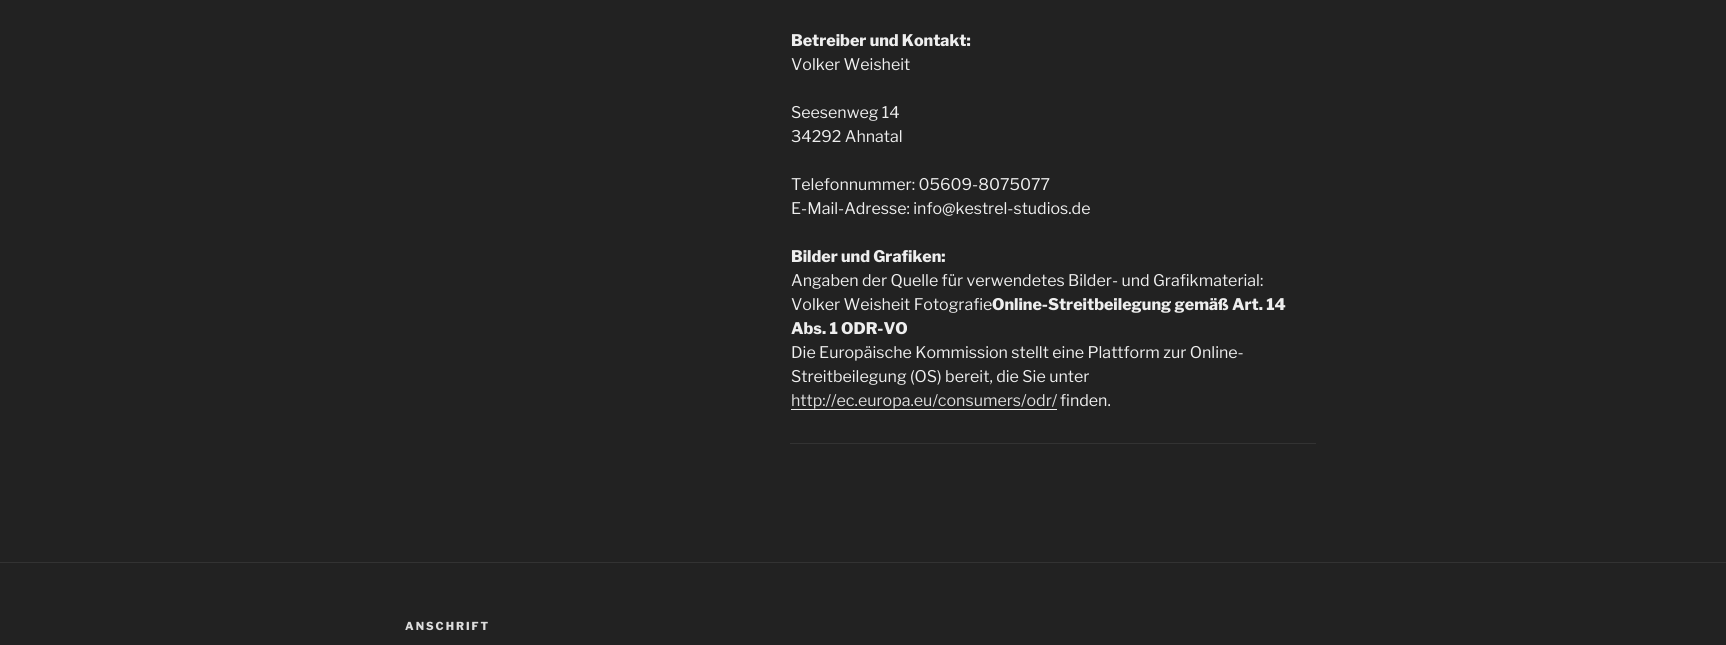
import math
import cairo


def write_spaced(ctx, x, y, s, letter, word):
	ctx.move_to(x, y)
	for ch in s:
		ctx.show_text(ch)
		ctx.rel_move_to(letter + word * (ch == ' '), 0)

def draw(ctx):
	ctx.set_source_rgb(0.133, 0.133, 0.133)
	ctx.paint()
	ctx.set_source_rgb(0.2, 0.2, 0.2)
	ctx.rectangle(790, 443, 526, 1)
	ctx.fill()
	ctx.select_font_face('Libre Franklin ExtraBold')
	ctx.set_font_size(16)
	ctx.set_source_rgb(0.933, 0.933, 0.933)
	ctx.move_to(791, 46)
	ctx.show_text('Betreiber und Kontakt:')
	ctx.select_font_face('Libre Franklin')
	for x, y, s in [
		(791, 70, 'Volker Weisheit'),
		(791, 118, 'Seesenweg 14'),
		(791, 142, '34292 Ahnatal'),
		(791, 190, 'Telefonnummer: 05609-8075077'),
		(791, 214, 'E-Mail-Adresse: info@kestrel-studios.de'),
	]:
		ctx.move_to(x, y)
		ctx.show_text(s)
	ctx.select_font_face('Libre Franklin ExtraBold')
	ctx.move_to(791, 262)
	ctx.show_text('Bilder und Grafiken:')
	ctx.select_font_face('Libre Franklin')
	ctx.move_to(791, 286)
	ctx.show_text('Angaben der Quelle für verwendetes Bilder- und Grafikmaterial:')
	ctx.move_to(791, 310)
	ctx.show_text('Volker Weisheit Fotografie')
	ctx.select_font_face('Libre Franklin ExtraBold')
	ctx.move_to(992, 310)
	ctx.show_text('Online-Streitbeilegung gemäß Art. 14')
	ctx.move_to(791, 334)
	ctx.show_text('Abs. 1 ODR-VO')
	ctx.select_font_face('Libre Franklin')
	ctx.move_to(791, 358)
	ctx.show_text('Die Europäische Kommission stellt eine Plattform zur Online-')
	ctx.move_to(791, 382)
	ctx.show_text('Streitbeilegung (OS) bereit, die Sie unter')
	ctx.set_source_rgb(0.867, 0.867, 0.867)
	ctx.move_to(791, 406)
	ctx.show_text('http://ec.europa.eu/consumers/odr/')
	ctx.set_source_rgb(0.941, 0.941, 0.941)
	ctx.rectangle(791, 409, 266, 1)
	ctx.fill()
	ctx.set_source_rgb(0.933, 0.933, 0.933)
	ctx.move_to(1060, 406)
	ctx.show_text('finden.')
	ctx.set_source_rgb(0.2, 0.2, 0.2)
	ctx.rectangle(0, 562, 1726, 1)
	ctx.fill()
	ctx.select_font_face('Libre Franklin ExtraBold')
	ctx.set_font_size(11)
	ctx.set_source_rgb(0.867, 0.867, 0.867)
	write_spaced(ctx, 405, 630, 'ANSCHRIFT', 2, 0)


surface = cairo.ImageSurface(cairo.FORMAT_RGB24, 1726, 645)
ctx = cairo.Context(surface)
options = cairo.FontOptions()
options.set_hint_metrics(cairo.HINT_METRICS_OFF)
options.set_hint_style(cairo.HINT_STYLE_NONE)
ctx.set_font_options(options)
ctx.set_miter_limit(4)
draw(ctx)
surface.write_to_png('image.png')
